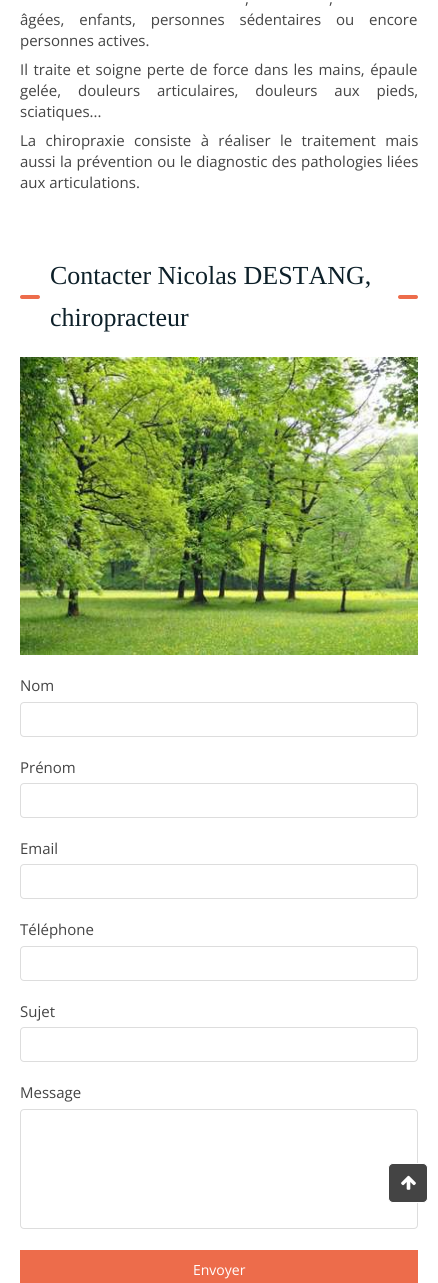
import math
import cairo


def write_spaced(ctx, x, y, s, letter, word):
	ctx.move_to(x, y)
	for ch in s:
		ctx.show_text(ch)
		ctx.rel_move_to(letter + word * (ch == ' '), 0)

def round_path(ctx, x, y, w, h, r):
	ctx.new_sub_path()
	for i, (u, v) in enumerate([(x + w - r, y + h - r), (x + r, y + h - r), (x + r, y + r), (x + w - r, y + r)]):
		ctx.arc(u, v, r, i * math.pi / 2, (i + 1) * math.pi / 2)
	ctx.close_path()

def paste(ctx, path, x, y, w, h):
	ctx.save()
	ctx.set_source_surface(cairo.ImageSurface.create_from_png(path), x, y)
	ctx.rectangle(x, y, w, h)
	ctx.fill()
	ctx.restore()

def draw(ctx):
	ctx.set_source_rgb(1, 1, 1)
	ctx.paint()
	ctx.select_font_face('Open Sans')
	ctx.set_font_size(15)
	ctx.set_source_rgb(0.267, 0.267, 0.267)
	write_spaced(ctx, 245, 4, ',', 0, 7)
	write_spaced(ctx, 329, 4, ',', 0, 7)
	write_spaced(ctx, 20, 25, 'âgées, enfants, personnes sédentaires ou encore', 0, 11)
	ctx.move_to(20, 46)
	ctx.show_text('personnes actives.')
	write_spaced(ctx, 20, 75, 'Il traite et soigne perte de force dans les mains, épaule', 0, 1.6)
	write_spaced(ctx, 20, 96, 'gelée, douleurs articulaires, douleurs aux pieds,', 0, 13)
	ctx.move_to(20, 117)
	ctx.show_text('sciatiques...')
	write_spaced(ctx, 20, 146, 'La chiropraxie consiste à réaliser le traitement mais', 0, 5.5)
	write_spaced(ctx, 20, 167, 'aussi la prévention ou le diagnostic des pathologies liées', 0, 0.5)
	ctx.move_to(20, 188)
	ctx.show_text('aux articulations.')
	ctx.select_font_face('Liberation Serif')
	ctx.set_font_size(26)
	ctx.set_source_rgb(0.051, 0.125, 0.161)
	ctx.move_to(50, 284)
	ctx.show_text('Contacter Nicolas DESTANG,')
	ctx.set_source_rgb(0.929, 0.424, 0.294)
	round_path(ctx, 20, 295, 20, 4, 2)
	ctx.fill()
	round_path(ctx, 398, 295, 20, 4, 2)
	ctx.fill()
	ctx.set_source_rgb(0.051, 0.125, 0.161)
	ctx.move_to(50, 326)
	ctx.show_text('chiropracteur')
	paste(ctx, 'media/1.png', 20, 357, 398, 298)
	ctx.select_font_face('Open Sans')
	ctx.set_font_size(15)
	ctx.set_source_rgb(0.267, 0.267, 0.267)
	ctx.move_to(20, 691)
	ctx.show_text('Nom')
	round_path(ctx, 20.5, 702.5, 397, 34, 3.5)
	ctx.set_source_rgb(0.867, 0.867, 0.867)
	ctx.set_line_width(1)
	ctx.stroke()
	ctx.set_source_rgb(0.267, 0.267, 0.267)
	ctx.move_to(20, 773)
	ctx.show_text('Prénom')
	round_path(ctx, 20.5, 783.5, 397, 34, 3.5)
	ctx.set_source_rgb(0.867, 0.867, 0.867)
	ctx.stroke()
	ctx.set_source_rgb(0.267, 0.267, 0.267)
	ctx.move_to(20, 854)
	ctx.show_text('Email')
	round_path(ctx, 20.5, 864.5, 397, 34, 3.5)
	ctx.set_source_rgb(0.867, 0.867, 0.867)
	ctx.stroke()
	ctx.set_source_rgb(0.267, 0.267, 0.267)
	ctx.move_to(20, 935)
	ctx.show_text('Téléphone')
	round_path(ctx, 20.5, 946.5, 397, 34, 3.5)
	ctx.set_source_rgb(0.867, 0.867, 0.867)
	ctx.stroke()
	ctx.set_source_rgb(0.267, 0.267, 0.267)
	ctx.move_to(20, 1017)
	ctx.show_text('Sujet')
	round_path(ctx, 20.5, 1027.5, 397, 34, 3.5)
	ctx.set_source_rgb(0.867, 0.867, 0.867)
	ctx.stroke()
	ctx.set_source_rgb(0.267, 0.267, 0.267)
	ctx.move_to(20, 1098)
	ctx.show_text('Message')
	round_path(ctx, 20.5, 1109.5, 397, 119, 3.5)
	ctx.set_source_rgb(0.867, 0.867, 0.867)
	ctx.stroke()
	ctx.set_source_rgb(0.929, 0.424, 0.294)
	ctx.rectangle(20, 1250, 398, 33)
	ctx.fill()
	ctx.set_font_size(14)
	ctx.set_source_rgb(1, 1, 1)
	ctx.move_to(193, 1275)
	ctx.show_text('Envoyer')
	ctx.set_source_rgb(0.267, 0.267, 0.267)
	round_path(ctx, 388.5, 1163.5, 39, 39, 4.5)
	ctx.fill_preserve()
	ctx.set_source_rgb(1, 1, 1)
	ctx.stroke()
	paste(ctx, 'media/2.png', 401, 1175, 15, 15)


surface = cairo.ImageSurface(cairo.FORMAT_RGB24, 438, 1283)
ctx = cairo.Context(surface)
options = cairo.FontOptions()
options.set_hint_metrics(cairo.HINT_METRICS_OFF)
options.set_hint_style(cairo.HINT_STYLE_NONE)
ctx.set_font_options(options)
ctx.set_miter_limit(4)
draw(ctx)
surface.write_to_png('image.png')
